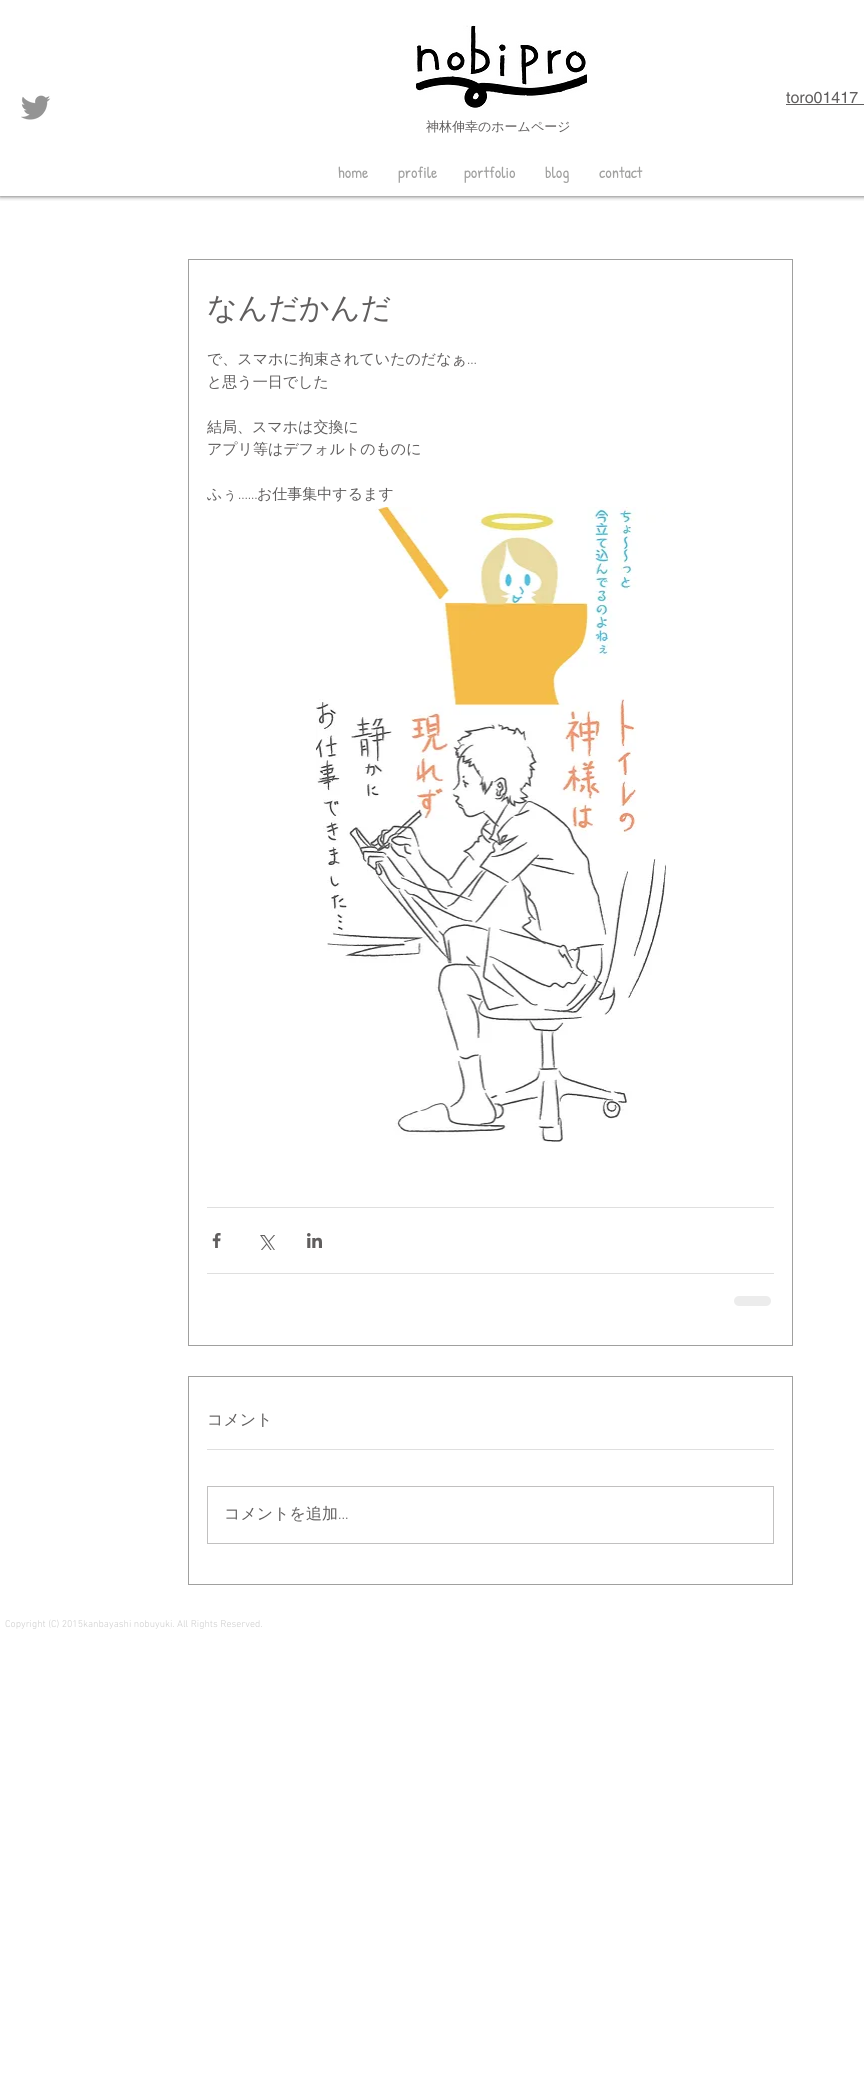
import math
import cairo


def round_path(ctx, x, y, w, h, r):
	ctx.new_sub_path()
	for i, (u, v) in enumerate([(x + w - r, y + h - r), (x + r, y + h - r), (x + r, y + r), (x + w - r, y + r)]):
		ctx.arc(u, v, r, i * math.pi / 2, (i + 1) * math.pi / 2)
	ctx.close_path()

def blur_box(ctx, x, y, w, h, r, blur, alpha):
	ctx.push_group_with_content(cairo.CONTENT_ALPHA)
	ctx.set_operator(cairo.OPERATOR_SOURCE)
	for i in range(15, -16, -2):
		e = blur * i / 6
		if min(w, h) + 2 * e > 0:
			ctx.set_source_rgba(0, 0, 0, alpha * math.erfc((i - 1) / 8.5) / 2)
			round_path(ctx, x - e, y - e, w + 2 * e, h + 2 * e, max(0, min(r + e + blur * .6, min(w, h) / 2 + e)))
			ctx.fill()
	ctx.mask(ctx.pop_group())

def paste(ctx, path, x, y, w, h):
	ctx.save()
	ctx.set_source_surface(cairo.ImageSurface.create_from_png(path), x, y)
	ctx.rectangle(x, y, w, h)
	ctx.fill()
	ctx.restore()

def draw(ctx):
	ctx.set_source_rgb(1, 1, 1)
	ctx.paint()
	ctx.save()
	ctx.rectangle(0, 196, 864, 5)
	ctx.clip()
	ctx.set_source_rgb(0, 0, 0)
	blur_box(ctx, 0, 0, 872, 196, 0, 2.5, 0.7)
	ctx.restore()
	paste(ctx, 'media/1.png', 21, 95, 30, 25)
	paste(ctx, 'media/2.png', 416, 25, 171, 85)
	ctx.select_font_face('helvetica')
	ctx.set_font_size(16)
	ctx.set_source_rgb(0.376, 0.369, 0.369)
	ctx.move_to(786, 103)
	ctx.show_text('toro01417')
	ctx.rectangle(786, 104, 78, 1)
	ctx.fill()
	ctx.select_font_face('WenQuanYi Zen Hei Medium')
	ctx.set_font_size(13)
	ctx.move_to(426, 131)
	ctx.show_text('神林伸幸のホームページ')
	ctx.select_font_face('Patrick Hand')
	ctx.set_font_size(16)
	ctx.set_source_rgb(0.627, 0.627, 0.624)
	for x, y, s in [
		(338, 178, 'home'),
		(398, 178, 'profile'),
		(464, 178, 'portfolio'),
		(545, 178, 'blog'),
		(599, 178, 'contact'),
	]:
		ctx.move_to(x, y)
		ctx.show_text(s)
	ctx.rectangle(188.5, 259.5, 604, 1086)
	ctx.set_line_width(1)
	ctx.stroke()
	ctx.select_font_face('WenQuanYi Zen Hei Medium')
	ctx.set_font_size(30)
	ctx.set_source_rgb(0.376, 0.369, 0.369)
	ctx.move_to(207, 318)
	ctx.show_text('なんだかんだ')
	ctx.set_font_size(15)
	ctx.move_to(207, 364)
	ctx.show_text('で、スマホに拘束されていたのだなぁ')
	ctx.select_font_face('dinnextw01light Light')
	ctx.move_to(467, 364)
	ctx.show_text('…')
	ctx.select_font_face('WenQuanYi Zen Hei Medium')
	for x, y, s in [
		(207, 387, 'と思う一日でした'),
		(207, 432, '結局、スマホは交換に'),
		(207, 454, 'アプリ等はデフォルトのものに'),
		(207, 499, 'ふぅ'),
	]:
		ctx.move_to(x, y)
		ctx.show_text(s)
	ctx.select_font_face('dinnextw01light Light')
	ctx.move_to(238, 499)
	ctx.show_text('……')
	ctx.select_font_face('WenQuanYi Zen Hei Medium')
	ctx.move_to(257, 499)
	ctx.show_text('お仕事集中するます')
	paste(ctx, 'media/3.png', 316, 507, 350, 635)
	ctx.set_source_rgb(0.875, 0.875, 0.875)
	ctx.rectangle(207, 1207, 567, 1)
	ctx.fill()
	paste(ctx, 'media/4.png', 212, 1233, 9, 15)
	paste(ctx, 'media/5.png', 260, 1235, 15, 15)
	paste(ctx, 'media/6.png', 307, 1233, 15, 15)
	ctx.rectangle(207, 1273, 567, 1)
	ctx.fill()
	ctx.set_source_rgb(0.925, 0.925, 0.925)
	round_path(ctx, 734, 1296, 37, 10, 5)
	ctx.fill()
	ctx.rectangle(188.5, 1376.5, 604, 208)
	ctx.set_source_rgb(0.627, 0.627, 0.624)
	ctx.stroke()
	ctx.set_font_size(16)
	ctx.set_source_rgb(0.376, 0.369, 0.369)
	ctx.move_to(207, 1425)
	ctx.show_text('コメント')
	ctx.set_source_rgb(0.875, 0.875, 0.875)
	ctx.rectangle(207, 1449, 567, 1)
	ctx.fill()
	ctx.rectangle(207.5, 1486.5, 566, 57)
	ctx.set_source_rgb(0.757, 0.753, 0.753)
	ctx.stroke()
	ctx.set_source_rgb(0.376, 0.369, 0.369)
	ctx.move_to(224, 1519)
	ctx.show_text('コメントを追加')
	ctx.select_font_face('dinnextw01light Light')
	ctx.move_to(338, 1519)
	ctx.show_text('…')
	ctx.set_font_size(10)
	ctx.set_source_rgb(0.8, 0.8, 0.8)
	ctx.move_to(5, 1627)
	ctx.show_text('Copyright (C) 2015kanbayashi nobuyuki. All Rights Reserved.')


surface = cairo.ImageSurface(cairo.FORMAT_RGB24, 864, 2094)
ctx = cairo.Context(surface)
options = cairo.FontOptions()
options.set_hint_metrics(cairo.HINT_METRICS_OFF)
options.set_hint_style(cairo.HINT_STYLE_NONE)
ctx.set_font_options(options)
ctx.set_miter_limit(4)
draw(ctx)
surface.write_to_png('image.png')
